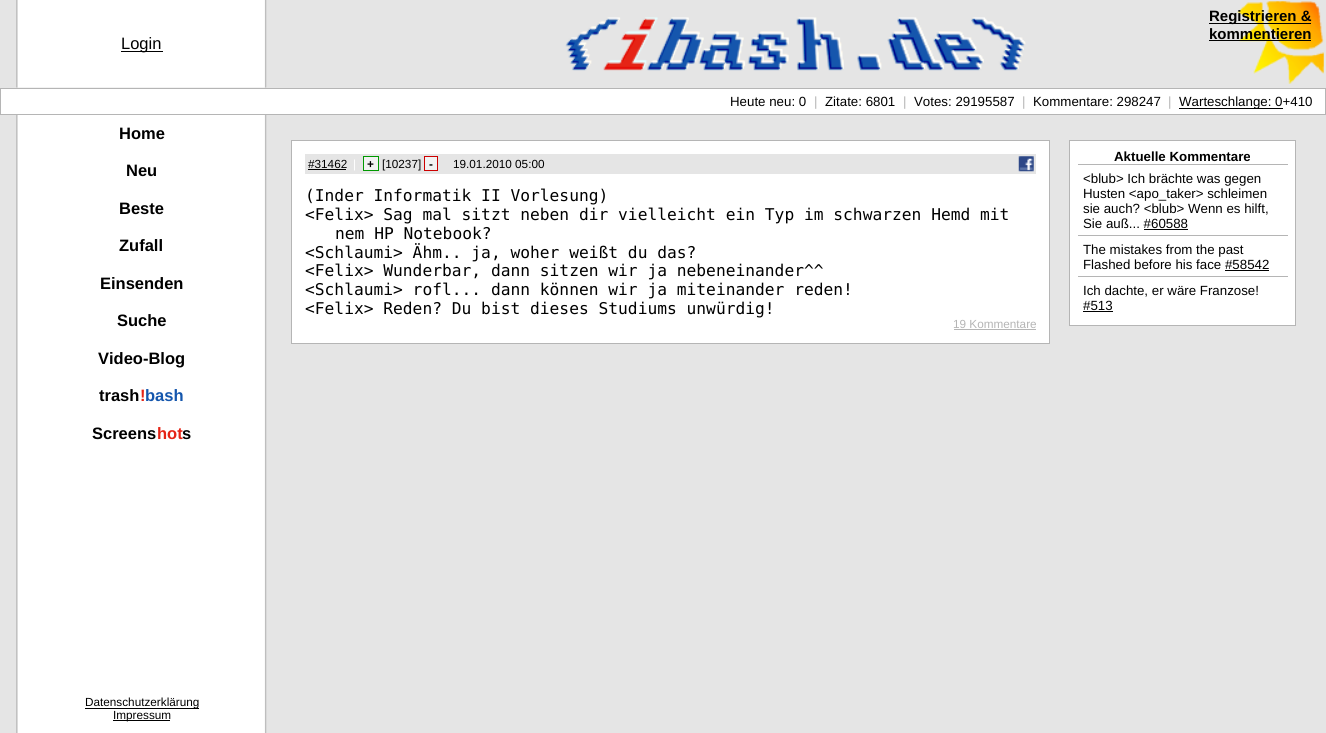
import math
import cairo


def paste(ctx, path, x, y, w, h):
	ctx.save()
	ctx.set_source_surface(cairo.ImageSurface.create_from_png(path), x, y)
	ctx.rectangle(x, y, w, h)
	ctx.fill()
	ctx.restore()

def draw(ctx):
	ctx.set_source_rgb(0.898, 0.898, 0.898)
	ctx.paint()
	paste(ctx, 'media/2.png', 1237, 1, 87, 83)
	ctx.set_source_rgb(0, 0, 0)
	ctx.rectangle(1209, 23, 102, 1)
	ctx.fill()
	ctx.select_font_face('Liberation Sans', cairo.FONT_SLANT_NORMAL, cairo.FONT_WEIGHT_BOLD)
	ctx.set_font_size(15)
	ctx.move_to(1209, 21)
	ctx.show_text('Registrieren &')
	ctx.move_to(1209, 39)
	ctx.show_text('kommentieren')
	ctx.rectangle(1209, 40, 102, 1)
	ctx.fill()
	paste(ctx, 'media/1.png', 16, 0, 251, 88)
	ctx.rectangle(121, 51, 42, 1)
	ctx.fill()
	ctx.select_font_face('Liberation Sans')
	ctx.set_font_size(16.5)
	ctx.move_to(121, 49)
	ctx.show_text('Login')
	paste(ctx, 'media/3.png', 565, 17, 461, 54)
	ctx.set_source_rgb(1, 1, 1)
	ctx.rectangle(0.5, 88.5, 1325, 26)
	ctx.fill_preserve()
	ctx.set_source_rgb(0.71, 0.71, 0.71)
	ctx.set_line_width(1)
	ctx.stroke()
	ctx.set_font_size(13.3)
	ctx.set_source_rgb(0, 0, 0)
	ctx.move_to(730, 106)
	ctx.show_text('Heute neu: 0')
	ctx.set_source_rgb(0.71, 0.71, 0.71)
	ctx.move_to(814, 106)
	ctx.show_text('|')
	ctx.set_source_rgb(0, 0, 0)
	ctx.move_to(825, 106)
	ctx.show_text('Zitate: 6801')
	ctx.set_source_rgb(0.71, 0.71, 0.71)
	ctx.move_to(903, 106)
	ctx.show_text('|')
	ctx.set_source_rgb(0, 0, 0)
	ctx.move_to(914, 106)
	ctx.show_text('Votes: 29195587')
	ctx.set_source_rgb(0.71, 0.71, 0.71)
	ctx.move_to(1022, 106)
	ctx.show_text('|')
	ctx.set_source_rgb(0, 0, 0)
	ctx.move_to(1033, 106)
	ctx.show_text('Kommentare: 298247')
	ctx.set_source_rgb(0.71, 0.71, 0.71)
	ctx.move_to(1168, 106)
	ctx.show_text('|')
	ctx.set_source_rgb(0, 0, 0)
	ctx.rectangle(1179, 108, 104, 1)
	ctx.fill()
	ctx.move_to(1179, 106)
	ctx.show_text('Warteschlange: 0+410')
	paste(ctx, 'media/4.png', 16, 115, 251, 618)
	ctx.select_font_face('Liberation Sans', cairo.FONT_SLANT_NORMAL, cairo.FONT_WEIGHT_BOLD)
	ctx.set_font_size(16.5)
	for x, y, s in [
		(119, 139, 'Home'),
		(126, 176, 'Neu'),
		(119, 214, 'Beste'),
		(119, 251, 'Zufall'),
		(100, 289, 'Einsenden'),
		(117, 326, 'Suche'),
		(98, 364, 'Video-Blog'),
		(99, 401, 'trash'),
	]:
		ctx.move_to(x, y)
		ctx.show_text(s)
	ctx.set_source_rgb(0.898, 0.141, 0.086)
	ctx.move_to(140, 401)
	ctx.show_text('!')
	ctx.set_source_rgb(0.082, 0.337, 0.678)
	ctx.move_to(145, 401)
	ctx.show_text('bash')
	ctx.set_source_rgb(0, 0, 0)
	ctx.move_to(92, 439)
	ctx.show_text('Screens')
	ctx.set_source_rgb(0.898, 0.141, 0.086)
	ctx.move_to(157, 439)
	ctx.show_text('hot')
	ctx.set_source_rgb(0, 0, 0)
	ctx.move_to(182, 439)
	ctx.show_text('s')
	ctx.rectangle(85, 708, 114, 1)
	ctx.fill()
	ctx.select_font_face('Liberation Sans')
	ctx.set_font_size(11.75)
	ctx.move_to(85, 706)
	ctx.show_text('Datenschutzerklärung')
	ctx.rectangle(113, 720, 57, 1)
	ctx.fill()
	ctx.move_to(113, 719)
	ctx.show_text('Impressum')
	ctx.set_source_rgb(1, 1, 1)
	ctx.rectangle(291.5, 140.5, 758, 203)
	ctx.fill_preserve()
	ctx.set_source_rgb(0.71, 0.71, 0.71)
	ctx.stroke()
	ctx.set_source_rgb(0.898, 0.898, 0.898)
	ctx.rectangle(305, 154, 731, 20)
	ctx.fill()
	ctx.set_source_rgb(0, 0, 0)
	ctx.move_to(308, 168)
	ctx.show_text('#31462')
	ctx.rectangle(308, 169, 38, 1)
	ctx.fill()
	ctx.set_source_rgb(1, 1, 1)
	ctx.move_to(353, 168)
	ctx.show_text('|')
	ctx.set_source_rgb(0.949, 0.949, 0.949)
	ctx.rectangle(363.5, 156.5, 15, 14)
	ctx.fill_preserve()
	ctx.set_source_rgb(0, 0.6, 0)
	ctx.stroke()
	ctx.select_font_face('Liberation Sans', cairo.FONT_SLANT_NORMAL, cairo.FONT_WEIGHT_BOLD)
	ctx.set_source_rgb(0, 0, 0)
	ctx.move_to(367, 168)
	ctx.show_text('+')
	ctx.select_font_face('Liberation Sans')
	ctx.move_to(382, 168)
	ctx.show_text('[10237]')
	ctx.set_source_rgb(0.949, 0.949, 0.949)
	ctx.rectangle(424.5, 156.5, 13, 14)
	ctx.fill_preserve()
	ctx.set_source_rgb(0.8, 0, 0)
	ctx.stroke()
	ctx.select_font_face('Liberation Sans', cairo.FONT_SLANT_NORMAL, cairo.FONT_WEIGHT_BOLD)
	ctx.set_source_rgb(0, 0, 0)
	ctx.move_to(429, 168)
	ctx.show_text('-')
	ctx.select_font_face('Liberation Sans')
	ctx.move_to(453, 168)
	ctx.show_text('19.01.2010 05:00')
	paste(ctx, 'media/5.png', 1018, 156, 16, 16)
	ctx.select_font_face('DejaVu Sans Mono')
	ctx.set_font_size(16.25)
	for x, y, s in [
		(305, 201, '(Inder Informatik II Vorlesung)'),
		(305, 220, '<Felix> Sag mal sitzt neben dir vielleicht ein Typ im schwarzen Hemd mit'),
		(335, 239, 'nem HP Notebook?'),
		(305, 258, '<Schlaumi> Ähm.. ja, woher weißt du das?'),
		(305, 276, '<Felix> Wunderbar, dann sitzen wir ja nebeneinander^^'),
		(305, 295, '<Schlaumi> rofl... dann können wir ja miteinander reden!'),
		(305, 314, '<Felix> Reden? Du bist dieses Studiums unwürdig!'),
	]:
		ctx.move_to(x, y)
		ctx.show_text(s)
	ctx.select_font_face('Liberation Sans')
	ctx.set_font_size(11.75)
	ctx.set_source_rgb(0.71, 0.71, 0.71)
	ctx.move_to(953, 328)
	ctx.show_text('19 Kommentare')
	ctx.rectangle(954, 329, 82, 1)
	ctx.fill()
	ctx.set_source_rgb(1, 1, 1)
	ctx.rectangle(1069.5, 140.5, 226, 185)
	ctx.fill_preserve()
	ctx.set_source_rgb(0.71, 0.71, 0.71)
	ctx.stroke()
	ctx.select_font_face('Liberation Sans', cairo.FONT_SLANT_NORMAL, cairo.FONT_WEIGHT_BOLD)
	ctx.set_font_size(13.3)
	ctx.set_source_rgb(0, 0, 0)
	ctx.move_to(1114, 161)
	ctx.show_text('Aktuelle Kommentare')
	ctx.set_source_rgb(0.71, 0.71, 0.71)
	ctx.rectangle(1078, 164, 210, 1)
	ctx.fill()
	ctx.select_font_face('Liberation Sans')
	ctx.set_source_rgb(0, 0, 0)
	for x, y, s in [
		(1083, 183, '<blub> Ich brächte was gegen'),
		(1083, 198, 'Husten <apo_taker> schleimen'),
		(1083, 213, 'sie auch? <blub> Wenn es hilft,'),
		(1083, 228, 'Sie auß... #60588'),
	]:
		ctx.move_to(x, y)
		ctx.show_text(s)
	ctx.rectangle(1144, 229, 44, 1)
	ctx.fill()
	ctx.set_source_rgb(0.71, 0.71, 0.71)
	ctx.rectangle(1078, 235, 210, 1)
	ctx.fill()
	ctx.set_source_rgb(0, 0, 0)
	ctx.move_to(1083, 254)
	ctx.show_text('The mistakes from the past')
	ctx.move_to(1083, 269)
	ctx.show_text('Flashed before his face #58542')
	ctx.rectangle(1225, 270, 44, 1)
	ctx.fill()
	ctx.set_source_rgb(0.71, 0.71, 0.71)
	ctx.rectangle(1078, 276, 210, 1)
	ctx.fill()
	ctx.set_source_rgb(0, 0, 0)
	ctx.move_to(1083, 295)
	ctx.show_text('Ich dachte, er wäre Franzose!')
	ctx.move_to(1083, 310)
	ctx.show_text('#513')
	ctx.rectangle(1083, 311, 30, 1)
	ctx.fill()


surface = cairo.ImageSurface(cairo.FORMAT_RGB24, 1326, 733)
ctx = cairo.Context(surface)
options = cairo.FontOptions()
options.set_hint_metrics(cairo.HINT_METRICS_OFF)
options.set_hint_style(cairo.HINT_STYLE_NONE)
ctx.set_font_options(options)
ctx.set_miter_limit(4)
draw(ctx)
surface.write_to_png('image.png')
